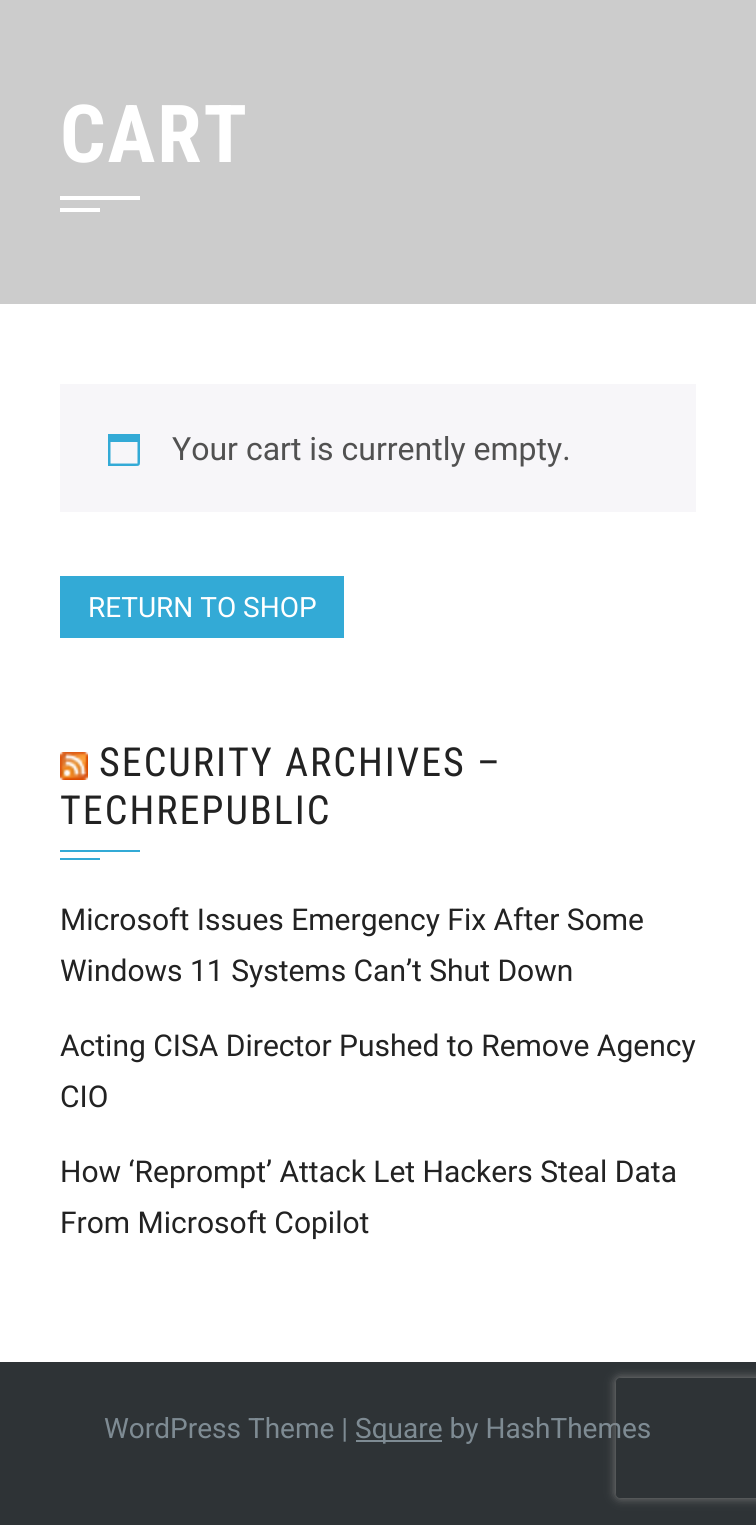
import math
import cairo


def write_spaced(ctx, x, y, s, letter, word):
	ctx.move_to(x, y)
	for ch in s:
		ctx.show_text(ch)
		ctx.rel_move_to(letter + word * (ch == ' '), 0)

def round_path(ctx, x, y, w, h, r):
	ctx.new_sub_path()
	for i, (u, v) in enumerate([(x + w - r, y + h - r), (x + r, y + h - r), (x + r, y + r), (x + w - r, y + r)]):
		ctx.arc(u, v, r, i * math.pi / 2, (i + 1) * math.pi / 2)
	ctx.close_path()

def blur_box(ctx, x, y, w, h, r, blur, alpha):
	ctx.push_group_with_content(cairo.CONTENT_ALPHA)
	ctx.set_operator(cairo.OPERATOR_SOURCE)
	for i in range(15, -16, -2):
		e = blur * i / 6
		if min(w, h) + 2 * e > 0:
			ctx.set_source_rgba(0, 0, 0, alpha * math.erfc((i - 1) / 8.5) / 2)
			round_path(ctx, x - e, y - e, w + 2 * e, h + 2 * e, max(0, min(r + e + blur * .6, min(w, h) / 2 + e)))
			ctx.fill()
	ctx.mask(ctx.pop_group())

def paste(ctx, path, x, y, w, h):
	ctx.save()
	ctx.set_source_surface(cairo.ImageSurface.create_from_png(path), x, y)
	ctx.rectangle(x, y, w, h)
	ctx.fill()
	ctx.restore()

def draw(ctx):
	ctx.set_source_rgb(1, 1, 1)
	ctx.paint()
	ctx.set_source_rgb(0.8, 0.8, 0.8)
	ctx.rectangle(0, 0, 756, 304)
	ctx.fill()
	ctx.select_font_face('Roboto Condensed', cairo.FONT_SLANT_NORMAL, cairo.FONT_WEIGHT_BOLD)
	ctx.set_font_size(80)
	ctx.set_source_rgb(1, 1, 1)
	write_spaced(ctx, 60, 162, 'CART', 2, 0)
	ctx.rectangle(60, 196, 80, 4)
	ctx.rectangle(60, 208, 40, 4)
	ctx.fill()
	ctx.set_source_rgb(0.965, 0.961, 0.973)
	ctx.rectangle(60, 384, 636, 128)
	ctx.fill()
	ctx.set_source_rgb(0.2, 0.667, 0.839)
	ctx.new_path()
	ctx.move_to(137.5, 442)
	ctx.line_to(110.5, 442)
	ctx.line_to(110.5, 463.5)
	ctx.line_to(137.5, 463.5)
	ctx.close_path()
	ctx.move_to(140, 434)
	ctx.line_to(140, 458.5)
	ctx.curve_to(140, 466.5, 140.5, 466, 132.5, 466)
	ctx.line_to(108, 466)
	ctx.line_to(108, 434)
	ctx.close_path()
	ctx.fill()
	ctx.select_font_face('Roboto')
	ctx.set_font_size(32)
	ctx.set_source_rgb(0.318, 0.318, 0.318)
	ctx.move_to(172, 460)
	ctx.show_text('Your cart is currently empty.')
	ctx.set_source_rgb(0.2, 0.667, 0.839)
	ctx.rectangle(60, 576, 284, 62)
	ctx.fill()
	ctx.set_font_size(28)
	ctx.set_source_rgb(1, 1, 1)
	ctx.move_to(88, 617)
	ctx.show_text('RETURN TO SHOP')
	paste(ctx, 'media/1.png', 60, 752, 28, 28)
	ctx.select_font_face('Roboto Condensed')
	ctx.set_font_size(40)
	ctx.set_source_rgb(0.133, 0.133, 0.133)
	write_spaced(ctx, 99, 776, 'SECURITY ARCHIVES –', 2, 0)
	write_spaced(ctx, 60, 824, 'TECHREPUBLIC', 2, 0)
	ctx.set_source_rgb(0.2, 0.667, 0.839)
	ctx.rectangle(60, 850, 80, 2)
	ctx.fill()
	ctx.rectangle(60, 858, 40, 2)
	ctx.fill()
	ctx.select_font_face('Roboto')
	ctx.set_font_size(30)
	ctx.set_source_rgb(0.133, 0.133, 0.133)
	for x, y, s in [
		(60, 930, 'Microsoft Issues Emergency Fix After Some'),
		(60, 981, 'Windows 11 Systems Can’t Shut Down'),
		(60, 1056, 'Acting CISA Director Pushed to Remove Agency'),
		(60, 1107, 'CIO'),
		(60, 1182, 'How ‘Reprompt’ Attack Let Hackers Steal Data'),
		(60, 1233, 'From Microsoft Copilot'),
	]:
		ctx.move_to(x, y)
		ctx.show_text(s)
	ctx.set_source_rgb(0.18, 0.2, 0.212)
	ctx.rectangle(0, 1362, 756, 163)
	ctx.fill()
	ctx.set_font_size(28)
	ctx.set_source_rgb(0.494, 0.545, 0.576)
	ctx.move_to(104, 1438)
	ctx.show_text('WordPress Theme |')
	ctx.rectangle(356, 1440, 86, 2)
	ctx.fill()
	ctx.move_to(355, 1438)
	ctx.show_text('Square by HashThemes')
	ctx.save()
	ctx.set_fill_rule(cairo.FILL_RULE_EVEN_ODD)
	ctx.new_path()
	ctx.move_to(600, 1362)
	ctx.line_to(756, 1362)
	ctx.line_to(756, 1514)
	ctx.line_to(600, 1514)
	ctx.close_path()
	ctx.move_to(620, 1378)
	ctx.line_to(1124, 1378)
	ctx.curve_to(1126, 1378, 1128, 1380, 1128, 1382)
	ctx.line_to(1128, 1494)
	ctx.curve_to(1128, 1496, 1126, 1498, 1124, 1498)
	ctx.line_to(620, 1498)
	ctx.curve_to(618, 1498, 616, 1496, 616, 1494)
	ctx.line_to(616, 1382)
	ctx.curve_to(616, 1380, 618, 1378, 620, 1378)
	ctx.close_path()
	ctx.clip()
	ctx.set_source_rgb(0.502, 0.502, 0.502)
	blur_box(ctx, 616, 1378, 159, 120, 4, 5, 1)
	ctx.restore()


surface = cairo.ImageSurface(cairo.FORMAT_RGB24, 756, 1525)
ctx = cairo.Context(surface)
options = cairo.FontOptions()
options.set_hint_metrics(cairo.HINT_METRICS_OFF)
options.set_hint_style(cairo.HINT_STYLE_NONE)
ctx.set_font_options(options)
ctx.set_miter_limit(4)
draw(ctx)
surface.write_to_png('image.png')
